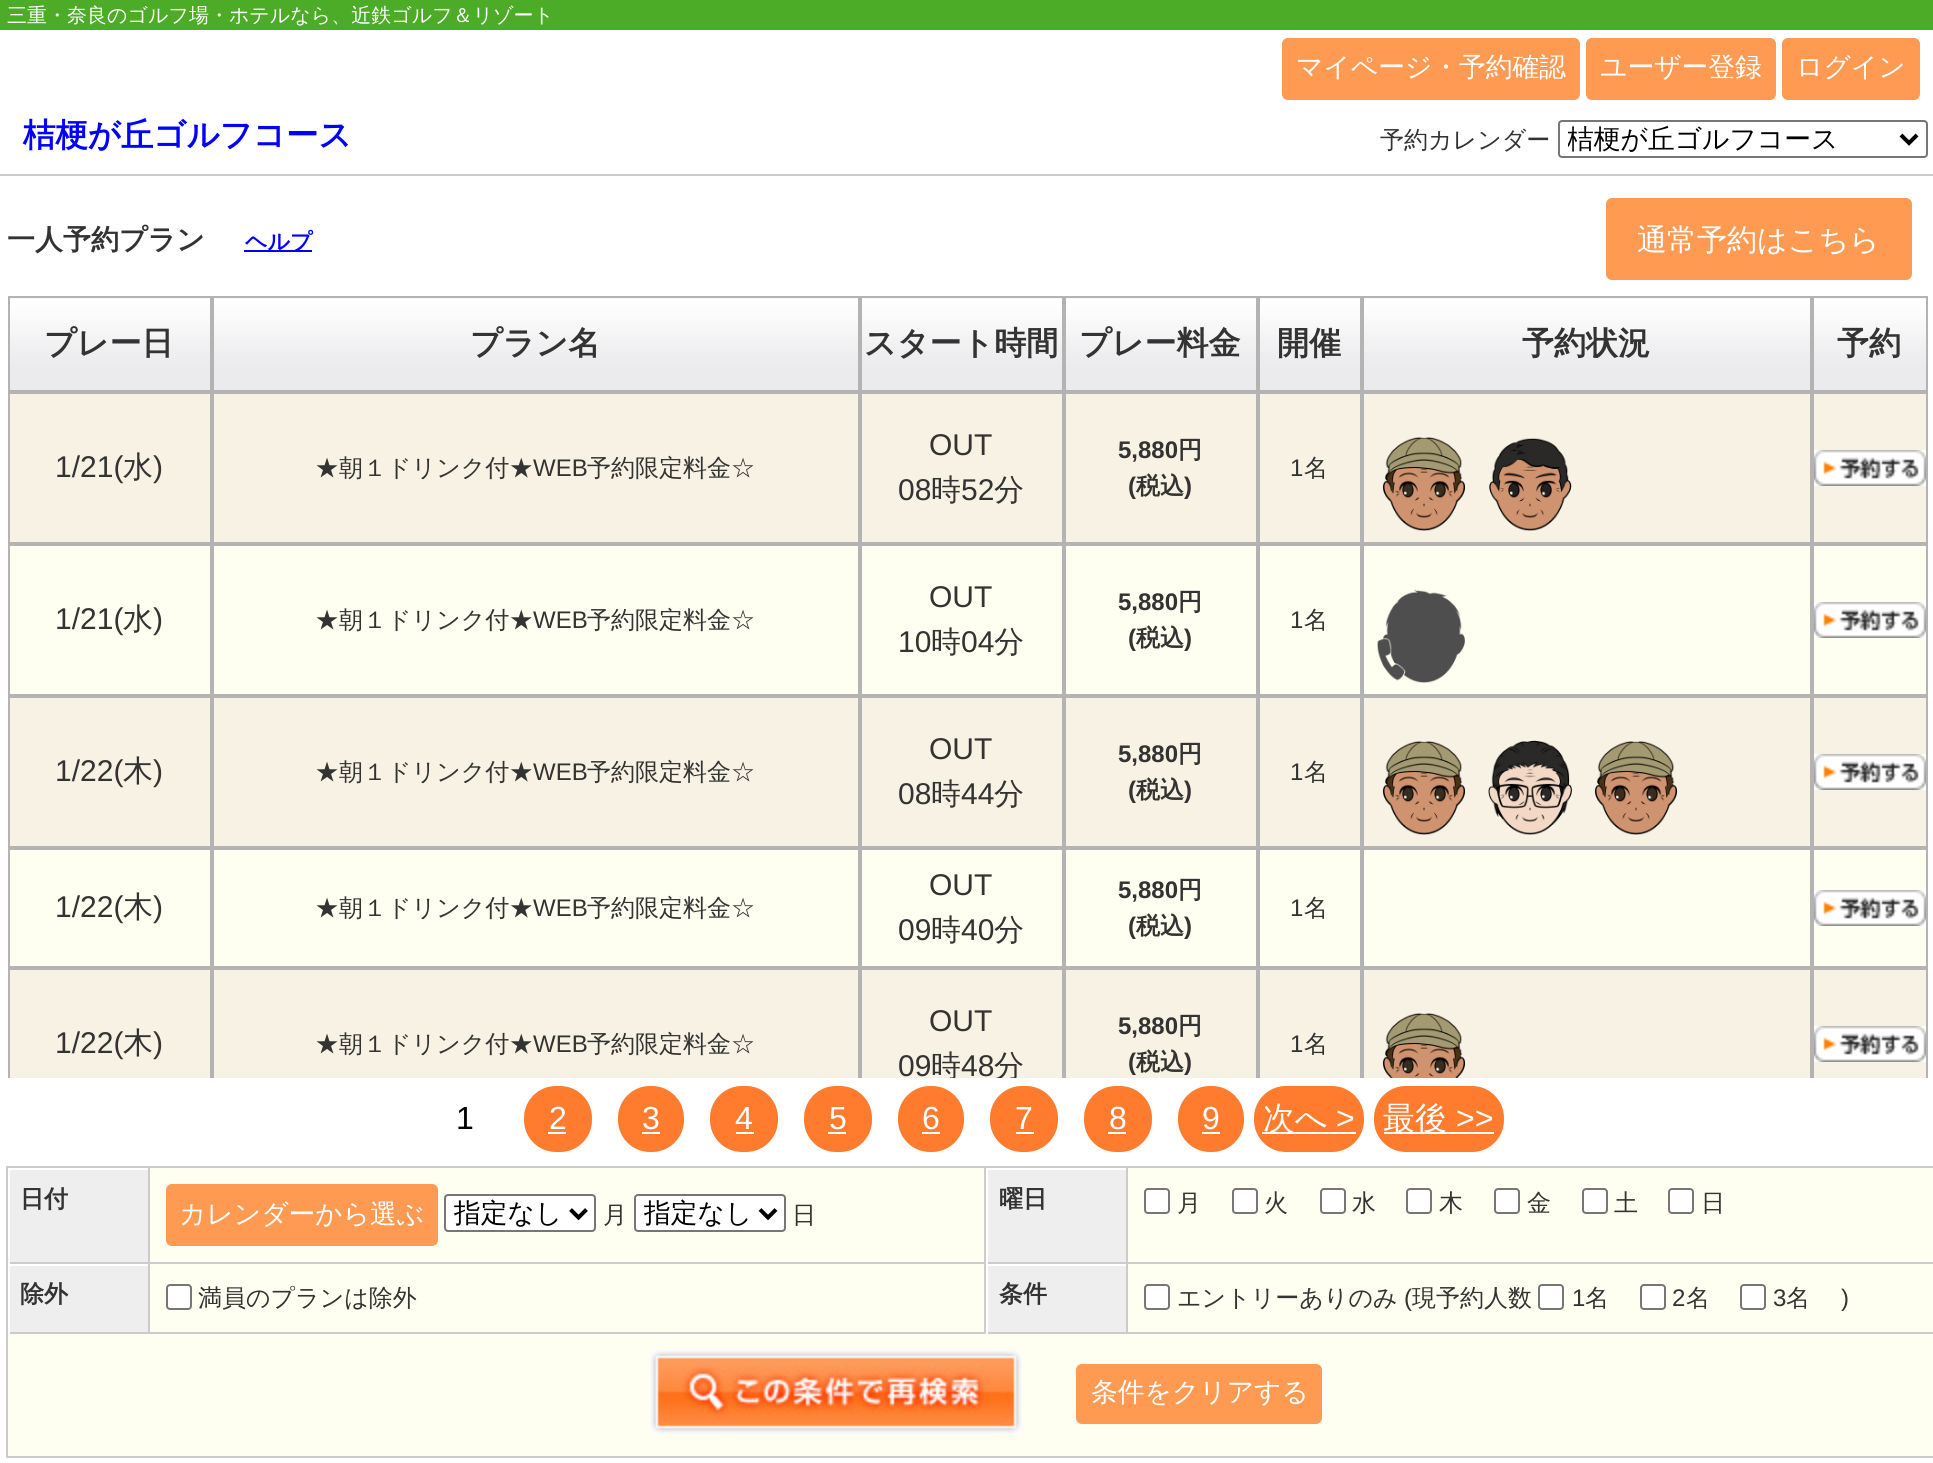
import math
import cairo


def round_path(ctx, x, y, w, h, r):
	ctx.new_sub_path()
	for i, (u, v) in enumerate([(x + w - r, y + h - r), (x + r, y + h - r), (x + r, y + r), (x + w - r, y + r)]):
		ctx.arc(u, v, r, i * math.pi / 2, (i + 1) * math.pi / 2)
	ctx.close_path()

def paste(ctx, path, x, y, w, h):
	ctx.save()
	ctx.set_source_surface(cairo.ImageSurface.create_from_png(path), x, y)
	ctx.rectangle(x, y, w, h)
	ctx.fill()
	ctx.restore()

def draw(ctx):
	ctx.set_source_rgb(1, 1, 1)
	ctx.paint()
	ctx.set_source_rgb(0.8, 0.8, 0.8)
	ctx.rectangle(0, 174, 1933, 2)
	ctx.fill()
	ctx.set_source_rgb(0.298, 0.675, 0.153)
	ctx.rectangle(0, 0, 1933, 30)
	ctx.fill()
	ctx.select_font_face('WenQuanYi Zen Hei Medium')
	ctx.set_font_size(20)
	ctx.set_source_rgb(1, 1, 1)
	ctx.move_to(7, 22)
	ctx.show_text('三重・奈良のゴルフ場・ホテルなら、近鉄ゴルフ＆リゾート')
	ctx.set_source_rgb(1, 0.604, 0.325)
	round_path(ctx, 1283, 39, 296, 60, 5)
	ctx.fill_preserve()
	ctx.stroke()
	ctx.set_font_size(26.75)
	ctx.set_source_rgb(1, 1, 1)
	ctx.move_to(1296, 76)
	ctx.show_text('マイページ・予約確認')
	ctx.set_source_rgb(1, 0.604, 0.325)
	round_path(ctx, 1587, 39, 188, 60, 5)
	ctx.fill_preserve()
	ctx.stroke()
	ctx.set_source_rgb(1, 1, 1)
	ctx.move_to(1600, 76)
	ctx.show_text('ユーザー登録')
	ctx.set_source_rgb(1, 0.604, 0.325)
	round_path(ctx, 1783, 39, 136, 60, 5)
	ctx.fill_preserve()
	ctx.stroke()
	ctx.set_source_rgb(1, 1, 1)
	ctx.move_to(1796, 76)
	ctx.show_text('ログイン')
	ctx.select_font_face('WenQuanYi Zen Hei', cairo.FONT_SLANT_NORMAL, cairo.FONT_WEIGHT_BOLD)
	ctx.set_font_size(32.4)
	ctx.set_source_rgb(0, 0, 0.996)
	ctx.move_to(23, 146)
	ctx.show_text('桔梗が丘ゴルフコース')
	ctx.select_font_face('WenQuanYi Zen Hei Medium')
	ctx.set_font_size(24)
	ctx.set_source_rgb(0.2, 0.2, 0.2)
	ctx.move_to(1380, 148)
	ctx.show_text('予約カレンダー')
	round_path(ctx, 1559, 121, 368, 36, 3)
	ctx.set_source_rgb(0.463, 0.463, 0.463)
	ctx.stroke()
	ctx.new_path()
	ctx.move_to(1901, 135)
	ctx.line_to(1909, 143)
	ctx.line_to(1917, 135)
	ctx.set_source_rgb(0, 0, 0)
	ctx.set_line_width(4)
	ctx.stroke()
	ctx.save()
	ctx.rectangle(1568, 122, 326, 34)
	ctx.clip()
	ctx.set_font_size(26.75)
	ctx.move_to(1567, 148)
	ctx.show_text('桔梗が丘ゴルフコース')
	ctx.restore()
	ctx.select_font_face('WenQuanYi Zen Hei', cairo.FONT_SLANT_NORMAL, cairo.FONT_WEIGHT_BOLD)
	ctx.set_font_size(28)
	ctx.set_source_rgb(0.2, 0.2, 0.2)
	ctx.move_to(7, 249)
	ctx.show_text('一人予約プラン')
	ctx.set_source_rgb(0, 0, 1)
	ctx.rectangle(244, 250, 68, 2)
	ctx.fill()
	ctx.set_font_size(22)
	ctx.set_source_rgb(0, 0, 0.996)
	ctx.move_to(245, 249)
	ctx.show_text('ヘルプ')
	ctx.set_source_rgb(1, 0.604, 0.325)
	round_path(ctx, 1607, 199, 304, 80, 5)
	ctx.fill_preserve()
	ctx.set_line_width(2)
	ctx.stroke()
	ctx.select_font_face('WenQuanYi Zen Hei Medium')
	ctx.set_font_size(30)
	ctx.set_source_rgb(1, 1, 1)
	ctx.move_to(1637, 250)
	ctx.show_text('通常予約はこちら')
	paste(ctx, 'media/1.png', 10, 298, 200, 92)
	ctx.rectangle(9, 297, 202, 94)
	ctx.set_source_rgb(0.702, 0.702, 0.702)
	ctx.stroke()
	ctx.select_font_face('WenQuanYi Zen Hei', cairo.FONT_SLANT_NORMAL, cairo.FONT_WEIGHT_BOLD)
	ctx.set_font_size(32)
	ctx.set_source_rgb(0.2, 0.2, 0.2)
	ctx.move_to(44, 354)
	ctx.show_text('プレー日')
	paste(ctx, 'media/2.png', 214, 298, 644, 92)
	ctx.rectangle(213, 297, 646, 94)
	ctx.set_source_rgb(0.702, 0.702, 0.702)
	ctx.stroke()
	ctx.set_source_rgb(0.2, 0.2, 0.2)
	ctx.move_to(470, 354)
	ctx.show_text('プラン名')
	paste(ctx, 'media/1.png', 862, 298, 200, 92)
	ctx.rectangle(861, 297, 202, 94)
	ctx.set_source_rgb(0.702, 0.702, 0.702)
	ctx.stroke()
	ctx.set_source_rgb(0.2, 0.2, 0.2)
	ctx.move_to(864, 354)
	ctx.show_text('スタート時間')
	paste(ctx, 'media/3.png', 1066, 298, 190, 92)
	ctx.rectangle(1065, 297, 192, 94)
	ctx.set_source_rgb(0.702, 0.702, 0.702)
	ctx.stroke()
	ctx.set_source_rgb(0.2, 0.2, 0.2)
	ctx.move_to(1079, 354)
	ctx.show_text('プレー料金')
	paste(ctx, 'media/4.png', 1260, 298, 100, 92)
	ctx.rectangle(1259, 297, 102, 94)
	ctx.set_source_rgb(0.702, 0.702, 0.702)
	ctx.stroke()
	ctx.set_source_rgb(0.2, 0.2, 0.2)
	ctx.move_to(1277, 354)
	ctx.show_text('開催')
	paste(ctx, 'media/5.png', 1364, 298, 446, 92)
	ctx.rectangle(1363, 297, 448, 94)
	ctx.set_source_rgb(0.702, 0.702, 0.702)
	ctx.stroke()
	ctx.set_source_rgb(0.2, 0.2, 0.2)
	ctx.move_to(1522, 354)
	ctx.show_text('予約状況')
	paste(ctx, 'media/6.png', 1814, 298, 112, 92)
	ctx.rectangle(1813, 297, 114, 94)
	ctx.set_source_rgb(0.702, 0.702, 0.702)
	ctx.stroke()
	ctx.set_source_rgb(0.2, 0.2, 0.2)
	ctx.move_to(1837, 354)
	ctx.show_text('予約')
	ctx.set_source_rgb(0.965, 0.949, 0.89)
	ctx.rectangle(10, 394, 1916, 148)
	ctx.fill()
	ctx.rectangle(9, 393, 202, 150)
	ctx.set_source_rgb(0.702, 0.702, 0.702)
	ctx.stroke()
	ctx.select_font_face('Liberation Sans')
	ctx.set_font_size(30)
	ctx.set_source_rgb(0.2, 0.2, 0.2)
	ctx.move_to(55, 477)
	ctx.show_text('1/21(')
	ctx.select_font_face('WenQuanYi Zen Hei Medium')
	ctx.move_to(123, 477)
	ctx.show_text('水')
	ctx.select_font_face('Liberation Sans')
	ctx.move_to(153, 477)
	ctx.show_text(')')
	ctx.rectangle(213, 393, 646, 150)
	ctx.set_source_rgb(0.702, 0.702, 0.702)
	ctx.stroke()
	ctx.select_font_face('WenQuanYi Zen Hei Medium')
	ctx.set_font_size(24)
	ctx.set_source_rgb(0.2, 0.2, 0.2)
	ctx.move_to(315, 476)
	ctx.show_text('★朝１ドリンク付★')
	ctx.select_font_face('Liberation Sans')
	ctx.move_to(533, 476)
	ctx.show_text('WEB')
	ctx.select_font_face('WenQuanYi Zen Hei Medium')
	ctx.move_to(587, 476)
	ctx.show_text('予約限定料金☆')
	ctx.rectangle(861, 393, 202, 150)
	ctx.set_source_rgb(0.702, 0.702, 0.702)
	ctx.stroke()
	ctx.select_font_face('Liberation Sans')
	ctx.set_font_size(30)
	ctx.set_source_rgb(0.2, 0.2, 0.2)
	ctx.move_to(929, 455)
	ctx.show_text('OUT')
	ctx.move_to(898, 500)
	ctx.show_text('08')
	ctx.select_font_face('WenQuanYi Zen Hei Medium')
	ctx.move_to(931, 500)
	ctx.show_text('時')
	ctx.select_font_face('Liberation Sans')
	ctx.move_to(961, 500)
	ctx.show_text('52')
	ctx.select_font_face('WenQuanYi Zen Hei Medium')
	ctx.move_to(994, 500)
	ctx.show_text('分')
	ctx.rectangle(1065, 393, 192, 150)
	ctx.set_source_rgb(0.702, 0.702, 0.702)
	ctx.stroke()
	ctx.select_font_face('Liberation Sans', cairo.FONT_SLANT_NORMAL, cairo.FONT_WEIGHT_BOLD)
	ctx.set_font_size(24)
	ctx.set_source_rgb(0.2, 0.2, 0.2)
	ctx.move_to(1118, 458)
	ctx.show_text('5,880')
	ctx.select_font_face('WenQuanYi Zen Hei', cairo.FONT_SLANT_NORMAL, cairo.FONT_WEIGHT_BOLD)
	ctx.move_to(1178, 458)
	ctx.show_text('円')
	ctx.select_font_face('Liberation Sans', cairo.FONT_SLANT_NORMAL, cairo.FONT_WEIGHT_BOLD)
	ctx.move_to(1128, 494)
	ctx.show_text('(')
	ctx.select_font_face('WenQuanYi Zen Hei', cairo.FONT_SLANT_NORMAL, cairo.FONT_WEIGHT_BOLD)
	ctx.move_to(1136, 494)
	ctx.show_text('税込')
	ctx.select_font_face('Liberation Sans', cairo.FONT_SLANT_NORMAL, cairo.FONT_WEIGHT_BOLD)
	ctx.move_to(1184, 494)
	ctx.show_text(')')
	ctx.rectangle(1259, 393, 102, 150)
	ctx.set_source_rgb(0.702, 0.702, 0.702)
	ctx.stroke()
	ctx.select_font_face('Liberation Sans')
	ctx.set_source_rgb(0.2, 0.2, 0.2)
	ctx.move_to(1290, 476)
	ctx.show_text('1')
	ctx.select_font_face('WenQuanYi Zen Hei Medium')
	ctx.move_to(1304, 476)
	ctx.show_text('名')
	ctx.rectangle(1363, 393, 448, 150)
	ctx.set_source_rgb(0.702, 0.702, 0.702)
	ctx.stroke()
	paste(ctx, 'media/7.png', 1382, 437, 84, 94)
	paste(ctx, 'media/8.png', 1489, 438, 83, 93)
	ctx.rectangle(1813, 393, 114, 150)
	ctx.stroke()
	paste(ctx, 'media/9.png', 1814, 450, 112, 36)
	ctx.set_source_rgb(1, 1, 0.945)
	ctx.rectangle(10, 546, 1916, 148)
	ctx.fill()
	ctx.rectangle(9, 545, 202, 150)
	ctx.set_source_rgb(0.702, 0.702, 0.702)
	ctx.stroke()
	ctx.select_font_face('Liberation Sans')
	ctx.set_font_size(30)
	ctx.set_source_rgb(0.2, 0.2, 0.2)
	ctx.move_to(55, 629)
	ctx.show_text('1/21(')
	ctx.select_font_face('WenQuanYi Zen Hei Medium')
	ctx.move_to(123, 629)
	ctx.show_text('水')
	ctx.select_font_face('Liberation Sans')
	ctx.move_to(153, 629)
	ctx.show_text(')')
	ctx.rectangle(213, 545, 646, 150)
	ctx.set_source_rgb(0.702, 0.702, 0.702)
	ctx.stroke()
	ctx.select_font_face('WenQuanYi Zen Hei Medium')
	ctx.set_font_size(24)
	ctx.set_source_rgb(0.2, 0.2, 0.2)
	ctx.move_to(315, 628)
	ctx.show_text('★朝１ドリンク付★')
	ctx.select_font_face('Liberation Sans')
	ctx.move_to(533, 628)
	ctx.show_text('WEB')
	ctx.select_font_face('WenQuanYi Zen Hei Medium')
	ctx.move_to(587, 628)
	ctx.show_text('予約限定料金☆')
	ctx.rectangle(861, 545, 202, 150)
	ctx.set_source_rgb(0.702, 0.702, 0.702)
	ctx.stroke()
	ctx.select_font_face('Liberation Sans')
	ctx.set_font_size(30)
	ctx.set_source_rgb(0.2, 0.2, 0.2)
	ctx.move_to(929, 607)
	ctx.show_text('OUT')
	ctx.move_to(898, 652)
	ctx.show_text('10')
	ctx.select_font_face('WenQuanYi Zen Hei Medium')
	ctx.move_to(931, 652)
	ctx.show_text('時')
	ctx.select_font_face('Liberation Sans')
	ctx.move_to(961, 652)
	ctx.show_text('04')
	ctx.select_font_face('WenQuanYi Zen Hei Medium')
	ctx.move_to(994, 652)
	ctx.show_text('分')
	ctx.rectangle(1065, 545, 192, 150)
	ctx.set_source_rgb(0.702, 0.702, 0.702)
	ctx.stroke()
	ctx.select_font_face('Liberation Sans', cairo.FONT_SLANT_NORMAL, cairo.FONT_WEIGHT_BOLD)
	ctx.set_font_size(24)
	ctx.set_source_rgb(0.2, 0.2, 0.2)
	ctx.move_to(1118, 610)
	ctx.show_text('5,880')
	ctx.select_font_face('WenQuanYi Zen Hei', cairo.FONT_SLANT_NORMAL, cairo.FONT_WEIGHT_BOLD)
	ctx.move_to(1178, 610)
	ctx.show_text('円')
	ctx.select_font_face('Liberation Sans', cairo.FONT_SLANT_NORMAL, cairo.FONT_WEIGHT_BOLD)
	ctx.move_to(1128, 646)
	ctx.show_text('(')
	ctx.select_font_face('WenQuanYi Zen Hei', cairo.FONT_SLANT_NORMAL, cairo.FONT_WEIGHT_BOLD)
	ctx.move_to(1136, 646)
	ctx.show_text('税込')
	ctx.select_font_face('Liberation Sans', cairo.FONT_SLANT_NORMAL, cairo.FONT_WEIGHT_BOLD)
	ctx.move_to(1184, 646)
	ctx.show_text(')')
	ctx.rectangle(1259, 545, 102, 150)
	ctx.set_source_rgb(0.702, 0.702, 0.702)
	ctx.stroke()
	ctx.select_font_face('Liberation Sans')
	ctx.set_source_rgb(0.2, 0.2, 0.2)
	ctx.move_to(1290, 628)
	ctx.show_text('1')
	ctx.select_font_face('WenQuanYi Zen Hei Medium')
	ctx.move_to(1304, 628)
	ctx.show_text('名')
	ctx.rectangle(1363, 545, 448, 150)
	ctx.set_source_rgb(0.702, 0.702, 0.702)
	ctx.stroke()
	paste(ctx, 'media/10.png', 1377, 589, 88, 94)
	ctx.rectangle(1813, 545, 114, 150)
	ctx.stroke()
	paste(ctx, 'media/9.png', 1814, 602, 112, 36)
	ctx.set_source_rgb(0.965, 0.949, 0.89)
	ctx.rectangle(10, 698, 1916, 148)
	ctx.fill()
	ctx.rectangle(9, 697, 202, 150)
	ctx.set_source_rgb(0.702, 0.702, 0.702)
	ctx.stroke()
	ctx.select_font_face('Liberation Sans')
	ctx.set_font_size(30)
	ctx.set_source_rgb(0.2, 0.2, 0.2)
	ctx.move_to(55, 781)
	ctx.show_text('1/22(')
	ctx.select_font_face('WenQuanYi Zen Hei Medium')
	ctx.move_to(123, 781)
	ctx.show_text('木')
	ctx.select_font_face('Liberation Sans')
	ctx.move_to(153, 781)
	ctx.show_text(')')
	ctx.rectangle(213, 697, 646, 150)
	ctx.set_source_rgb(0.702, 0.702, 0.702)
	ctx.stroke()
	ctx.select_font_face('WenQuanYi Zen Hei Medium')
	ctx.set_font_size(24)
	ctx.set_source_rgb(0.2, 0.2, 0.2)
	ctx.move_to(315, 780)
	ctx.show_text('★朝１ドリンク付★')
	ctx.select_font_face('Liberation Sans')
	ctx.move_to(533, 780)
	ctx.show_text('WEB')
	ctx.select_font_face('WenQuanYi Zen Hei Medium')
	ctx.move_to(587, 780)
	ctx.show_text('予約限定料金☆')
	ctx.rectangle(861, 697, 202, 150)
	ctx.set_source_rgb(0.702, 0.702, 0.702)
	ctx.stroke()
	ctx.select_font_face('Liberation Sans')
	ctx.set_font_size(30)
	ctx.set_source_rgb(0.2, 0.2, 0.2)
	ctx.move_to(929, 759)
	ctx.show_text('OUT')
	ctx.move_to(898, 804)
	ctx.show_text('08')
	ctx.select_font_face('WenQuanYi Zen Hei Medium')
	ctx.move_to(931, 804)
	ctx.show_text('時')
	ctx.select_font_face('Liberation Sans')
	ctx.move_to(961, 804)
	ctx.show_text('44')
	ctx.select_font_face('WenQuanYi Zen Hei Medium')
	ctx.move_to(994, 804)
	ctx.show_text('分')
	ctx.rectangle(1065, 697, 192, 150)
	ctx.set_source_rgb(0.702, 0.702, 0.702)
	ctx.stroke()
	ctx.select_font_face('Liberation Sans', cairo.FONT_SLANT_NORMAL, cairo.FONT_WEIGHT_BOLD)
	ctx.set_font_size(24)
	ctx.set_source_rgb(0.2, 0.2, 0.2)
	ctx.move_to(1118, 762)
	ctx.show_text('5,880')
	ctx.select_font_face('WenQuanYi Zen Hei', cairo.FONT_SLANT_NORMAL, cairo.FONT_WEIGHT_BOLD)
	ctx.move_to(1178, 762)
	ctx.show_text('円')
	ctx.select_font_face('Liberation Sans', cairo.FONT_SLANT_NORMAL, cairo.FONT_WEIGHT_BOLD)
	ctx.move_to(1128, 798)
	ctx.show_text('(')
	ctx.select_font_face('WenQuanYi Zen Hei', cairo.FONT_SLANT_NORMAL, cairo.FONT_WEIGHT_BOLD)
	ctx.move_to(1136, 798)
	ctx.show_text('税込')
	ctx.select_font_face('Liberation Sans', cairo.FONT_SLANT_NORMAL, cairo.FONT_WEIGHT_BOLD)
	ctx.move_to(1184, 798)
	ctx.show_text(')')
	ctx.rectangle(1259, 697, 102, 150)
	ctx.set_source_rgb(0.702, 0.702, 0.702)
	ctx.stroke()
	ctx.select_font_face('Liberation Sans')
	ctx.set_source_rgb(0.2, 0.2, 0.2)
	ctx.move_to(1290, 780)
	ctx.show_text('1')
	ctx.select_font_face('WenQuanYi Zen Hei Medium')
	ctx.move_to(1304, 780)
	ctx.show_text('名')
	ctx.rectangle(1363, 697, 448, 150)
	ctx.set_source_rgb(0.702, 0.702, 0.702)
	ctx.stroke()
	paste(ctx, 'media/7.png', 1382, 741, 84, 94)
	paste(ctx, 'media/11.png', 1488, 740, 84, 95)
	paste(ctx, 'media/12.png', 1594, 741, 84, 94)
	ctx.rectangle(1813, 697, 114, 150)
	ctx.stroke()
	paste(ctx, 'media/9.png', 1814, 754, 112, 36)
	ctx.set_source_rgb(1, 1, 0.945)
	ctx.rectangle(10, 850, 1916, 116)
	ctx.fill()
	ctx.rectangle(9, 849, 202, 118)
	ctx.set_source_rgb(0.702, 0.702, 0.702)
	ctx.stroke()
	ctx.select_font_face('Liberation Sans')
	ctx.set_font_size(30)
	ctx.set_source_rgb(0.2, 0.2, 0.2)
	ctx.move_to(55, 917)
	ctx.show_text('1/22(')
	ctx.select_font_face('WenQuanYi Zen Hei Medium')
	ctx.move_to(123, 917)
	ctx.show_text('木')
	ctx.select_font_face('Liberation Sans')
	ctx.move_to(153, 917)
	ctx.show_text(')')
	ctx.rectangle(213, 849, 646, 118)
	ctx.set_source_rgb(0.702, 0.702, 0.702)
	ctx.stroke()
	ctx.select_font_face('WenQuanYi Zen Hei Medium')
	ctx.set_font_size(24)
	ctx.set_source_rgb(0.2, 0.2, 0.2)
	ctx.move_to(315, 916)
	ctx.show_text('★朝１ドリンク付★')
	ctx.select_font_face('Liberation Sans')
	ctx.move_to(533, 916)
	ctx.show_text('WEB')
	ctx.select_font_face('WenQuanYi Zen Hei Medium')
	ctx.move_to(587, 916)
	ctx.show_text('予約限定料金☆')
	ctx.rectangle(861, 849, 202, 118)
	ctx.set_source_rgb(0.702, 0.702, 0.702)
	ctx.stroke()
	ctx.select_font_face('Liberation Sans')
	ctx.set_font_size(30)
	ctx.set_source_rgb(0.2, 0.2, 0.2)
	ctx.move_to(929, 895)
	ctx.show_text('OUT')
	ctx.move_to(898, 940)
	ctx.show_text('09')
	ctx.select_font_face('WenQuanYi Zen Hei Medium')
	ctx.move_to(931, 940)
	ctx.show_text('時')
	ctx.select_font_face('Liberation Sans')
	ctx.move_to(961, 940)
	ctx.show_text('40')
	ctx.select_font_face('WenQuanYi Zen Hei Medium')
	ctx.move_to(994, 940)
	ctx.show_text('分')
	ctx.rectangle(1065, 849, 192, 118)
	ctx.set_source_rgb(0.702, 0.702, 0.702)
	ctx.stroke()
	ctx.select_font_face('Liberation Sans', cairo.FONT_SLANT_NORMAL, cairo.FONT_WEIGHT_BOLD)
	ctx.set_font_size(24)
	ctx.set_source_rgb(0.2, 0.2, 0.2)
	ctx.move_to(1118, 898)
	ctx.show_text('5,880')
	ctx.select_font_face('WenQuanYi Zen Hei', cairo.FONT_SLANT_NORMAL, cairo.FONT_WEIGHT_BOLD)
	ctx.move_to(1178, 898)
	ctx.show_text('円')
	ctx.select_font_face('Liberation Sans', cairo.FONT_SLANT_NORMAL, cairo.FONT_WEIGHT_BOLD)
	ctx.move_to(1128, 934)
	ctx.show_text('(')
	ctx.select_font_face('WenQuanYi Zen Hei', cairo.FONT_SLANT_NORMAL, cairo.FONT_WEIGHT_BOLD)
	ctx.move_to(1136, 934)
	ctx.show_text('税込')
	ctx.select_font_face('Liberation Sans', cairo.FONT_SLANT_NORMAL, cairo.FONT_WEIGHT_BOLD)
	ctx.move_to(1184, 934)
	ctx.show_text(')')
	ctx.rectangle(1259, 849, 102, 118)
	ctx.set_source_rgb(0.702, 0.702, 0.702)
	ctx.stroke()
	ctx.select_font_face('Liberation Sans')
	ctx.set_source_rgb(0.2, 0.2, 0.2)
	ctx.move_to(1290, 916)
	ctx.show_text('1')
	ctx.select_font_face('WenQuanYi Zen Hei Medium')
	ctx.move_to(1304, 916)
	ctx.show_text('名')
	ctx.rectangle(1363, 849, 448, 118)
	ctx.set_source_rgb(0.702, 0.702, 0.702)
	ctx.stroke()
	ctx.rectangle(1813, 849, 114, 118)
	ctx.stroke()
	paste(ctx, 'media/9.png', 1814, 890, 112, 36)
	ctx.set_source_rgb(0.965, 0.949, 0.89)
	ctx.rectangle(10, 970, 1916, 108)
	ctx.fill()
	ctx.rectangle(9, 969, 202, 150)
	ctx.set_source_rgb(0.702, 0.702, 0.702)
	ctx.stroke()
	ctx.select_font_face('Liberation Sans')
	ctx.set_font_size(30)
	ctx.set_source_rgb(0.2, 0.2, 0.2)
	ctx.move_to(55, 1053)
	ctx.show_text('1/22(')
	ctx.select_font_face('WenQuanYi Zen Hei Medium')
	ctx.move_to(123, 1053)
	ctx.show_text('木')
	ctx.select_font_face('Liberation Sans')
	ctx.move_to(153, 1053)
	ctx.show_text(')')
	ctx.rectangle(213, 969, 646, 150)
	ctx.set_source_rgb(0.702, 0.702, 0.702)
	ctx.stroke()
	ctx.select_font_face('WenQuanYi Zen Hei Medium')
	ctx.set_font_size(24)
	ctx.set_source_rgb(0.2, 0.2, 0.2)
	ctx.move_to(315, 1052)
	ctx.show_text('★朝１ドリンク付★')
	ctx.select_font_face('Liberation Sans')
	ctx.move_to(533, 1052)
	ctx.show_text('WEB')
	ctx.select_font_face('WenQuanYi Zen Hei Medium')
	ctx.move_to(587, 1052)
	ctx.show_text('予約限定料金☆')
	ctx.rectangle(861, 969, 202, 150)
	ctx.set_source_rgb(0.702, 0.702, 0.702)
	ctx.stroke()
	ctx.select_font_face('Liberation Sans')
	ctx.set_font_size(30)
	ctx.set_source_rgb(0.2, 0.2, 0.2)
	ctx.move_to(929, 1031)
	ctx.show_text('OUT')
	ctx.move_to(898, 1076)
	ctx.show_text('09')
	ctx.select_font_face('WenQuanYi Zen Hei Medium')
	ctx.move_to(931, 1076)
	ctx.show_text('時')
	ctx.select_font_face('Liberation Sans')
	ctx.move_to(961, 1076)
	ctx.show_text('48')
	ctx.select_font_face('WenQuanYi Zen Hei Medium')
	ctx.move_to(994, 1076)
	ctx.show_text('分')
	ctx.rectangle(1065, 969, 192, 150)
	ctx.set_source_rgb(0.702, 0.702, 0.702)
	ctx.stroke()
	ctx.select_font_face('Liberation Sans', cairo.FONT_SLANT_NORMAL, cairo.FONT_WEIGHT_BOLD)
	ctx.set_font_size(24)
	ctx.set_source_rgb(0.2, 0.2, 0.2)
	ctx.move_to(1118, 1034)
	ctx.show_text('5,880')
	ctx.select_font_face('WenQuanYi Zen Hei', cairo.FONT_SLANT_NORMAL, cairo.FONT_WEIGHT_BOLD)
	ctx.move_to(1178, 1034)
	ctx.show_text('円')
	ctx.select_font_face('Liberation Sans', cairo.FONT_SLANT_NORMAL, cairo.FONT_WEIGHT_BOLD)
	ctx.move_to(1128, 1070)
	ctx.show_text('(')
	ctx.select_font_face('WenQuanYi Zen Hei', cairo.FONT_SLANT_NORMAL, cairo.FONT_WEIGHT_BOLD)
	ctx.move_to(1136, 1070)
	ctx.show_text('税込')
	ctx.select_font_face('Liberation Sans', cairo.FONT_SLANT_NORMAL, cairo.FONT_WEIGHT_BOLD)
	ctx.move_to(1184, 1070)
	ctx.show_text(')')
	ctx.rectangle(1259, 969, 102, 150)
	ctx.set_source_rgb(0.702, 0.702, 0.702)
	ctx.stroke()
	ctx.select_font_face('Liberation Sans')
	ctx.set_source_rgb(0.2, 0.2, 0.2)
	ctx.move_to(1290, 1052)
	ctx.show_text('1')
	ctx.select_font_face('WenQuanYi Zen Hei Medium')
	ctx.move_to(1304, 1052)
	ctx.show_text('名')
	ctx.rectangle(1363, 969, 448, 150)
	ctx.set_source_rgb(0.702, 0.702, 0.702)
	ctx.stroke()
	paste(ctx, 'media/13.png', 1382, 1013, 84, 65)
	ctx.rectangle(1813, 969, 114, 150)
	ctx.stroke()
	paste(ctx, 'media/9.png', 1814, 1026, 112, 36)
	ctx.set_source_rgb(1, 1, 1)
	ctx.rectangle(8, 1078, 1920, 42)
	ctx.fill()
	ctx.select_font_face('Liberation Sans')
	ctx.set_font_size(32)
	ctx.set_source_rgb(0, 0, 0)
	ctx.move_to(456, 1129)
	ctx.show_text('1')
	ctx.set_source_rgb(1, 0.482, 0.176)
	round_path(ctx, 524, 1086, 68, 66, 32)
	ctx.fill()
	ctx.set_source_rgb(1, 1, 1)
	ctx.move_to(549, 1129)
	ctx.show_text('2')
	ctx.rectangle(548, 1132, 18, 2)
	ctx.fill()
	ctx.set_source_rgb(1, 0.482, 0.176)
	round_path(ctx, 618, 1086, 66, 66, 32)
	ctx.fill()
	ctx.set_source_rgb(1, 1, 1)
	ctx.move_to(642, 1129)
	ctx.show_text('3')
	ctx.rectangle(642, 1132, 18, 2)
	ctx.fill()
	ctx.set_source_rgb(1, 0.482, 0.176)
	round_path(ctx, 710, 1086, 68, 66, 32)
	ctx.fill()
	ctx.set_source_rgb(1, 1, 1)
	ctx.move_to(735, 1129)
	ctx.show_text('4')
	ctx.rectangle(736, 1132, 18, 2)
	ctx.fill()
	ctx.set_source_rgb(1, 0.482, 0.176)
	round_path(ctx, 804, 1086, 68, 66, 32)
	ctx.fill()
	ctx.set_source_rgb(1, 1, 1)
	ctx.move_to(829, 1129)
	ctx.show_text('5')
	ctx.rectangle(828, 1132, 18, 2)
	ctx.fill()
	ctx.set_source_rgb(1, 0.482, 0.176)
	round_path(ctx, 898, 1086, 66, 66, 32)
	ctx.fill()
	ctx.set_source_rgb(1, 1, 1)
	ctx.move_to(922, 1129)
	ctx.show_text('6')
	ctx.rectangle(922, 1132, 18, 2)
	ctx.fill()
	ctx.set_source_rgb(1, 0.482, 0.176)
	round_path(ctx, 990, 1086, 68, 66, 32)
	ctx.fill()
	ctx.set_source_rgb(1, 1, 1)
	ctx.move_to(1015, 1129)
	ctx.show_text('7')
	ctx.rectangle(1016, 1132, 18, 2)
	ctx.fill()
	ctx.set_source_rgb(1, 0.482, 0.176)
	round_path(ctx, 1084, 1086, 68, 66, 32)
	ctx.fill()
	ctx.set_source_rgb(1, 1, 1)
	ctx.move_to(1109, 1129)
	ctx.show_text('8')
	ctx.rectangle(1108, 1132, 18, 2)
	ctx.fill()
	ctx.set_source_rgb(1, 0.482, 0.176)
	round_path(ctx, 1178, 1086, 66, 66, 32)
	ctx.fill()
	ctx.set_source_rgb(1, 1, 1)
	ctx.move_to(1202, 1129)
	ctx.show_text('9')
	ctx.rectangle(1202, 1132, 18, 2)
	ctx.fill()
	ctx.set_source_rgb(1, 0.482, 0.176)
	round_path(ctx, 1254, 1086, 110, 66, 32)
	ctx.fill()
	ctx.set_source_rgb(1, 1, 1)
	ctx.rectangle(1262, 1132, 94, 2)
	ctx.fill()
	ctx.select_font_face('WenQuanYi Zen Hei Medium')
	ctx.move_to(1263, 1129)
	ctx.show_text('次へ')
	ctx.select_font_face('Liberation Sans')
	ctx.move_to(1336, 1129)
	ctx.show_text('>')
	ctx.set_source_rgb(1, 0.482, 0.176)
	round_path(ctx, 1374, 1086, 130, 66, 32)
	ctx.fill()
	ctx.set_source_rgb(1, 1, 1)
	ctx.rectangle(1384, 1132, 110, 2)
	ctx.fill()
	ctx.select_font_face('WenQuanYi Zen Hei Medium')
	ctx.move_to(1383, 1129)
	ctx.show_text('最後')
	ctx.select_font_face('Liberation Sans')
	ctx.move_to(1456, 1129)
	ctx.show_text('>>')
	ctx.set_source_rgb(0.8, 0.8, 0.8)
	ctx.rectangle(6, 1166, 1927, 2)
	ctx.rectangle(6, 1166, 2, 292)
	ctx.fill()
	ctx.set_source_rgb(0.933, 0.933, 0.933)
	ctx.rectangle(10, 1170, 138, 92)
	ctx.fill()
	ctx.set_source_rgb(0.8, 0.8, 0.8)
	ctx.rectangle(148, 1168, 2, 166)
	ctx.rectangle(8, 1262, 142, 2)
	ctx.fill()
	ctx.set_source_rgb(1, 1, 1)
	ctx.rectangle(8, 1262, 2, 2)
	ctx.fill()
	ctx.select_font_face('WenQuanYi Zen Hei', cairo.FONT_SLANT_NORMAL, cairo.FONT_WEIGHT_BOLD)
	ctx.set_font_size(24)
	ctx.set_source_rgb(0.2, 0.2, 0.2)
	ctx.move_to(20, 1207)
	ctx.show_text('日付')
	ctx.set_source_rgb(1, 1, 0.945)
	ctx.rectangle(150, 1168, 834, 94)
	ctx.fill()
	ctx.set_source_rgb(0.8, 0.8, 0.8)
	ctx.rectangle(984, 1168, 2, 166)
	ctx.rectangle(150, 1262, 836, 2)
	ctx.fill()
	ctx.set_source_rgb(1, 0.604, 0.325)
	round_path(ctx, 167, 1185, 270, 60, 5)
	ctx.fill_preserve()
	ctx.stroke()
	ctx.select_font_face('WenQuanYi Zen Hei Medium')
	ctx.set_font_size(26.75)
	ctx.set_source_rgb(1, 1, 1)
	ctx.move_to(179, 1223)
	ctx.show_text('カレンダーから選ぶ')
	round_path(ctx, 445, 1195, 150, 36, 3)
	ctx.fill_preserve()
	ctx.set_source_rgb(0.463, 0.463, 0.463)
	ctx.stroke()
	ctx.new_path()
	ctx.move_to(570.5, 1209.5)
	ctx.line_to(578.5, 1217.5)
	ctx.line_to(586.5, 1209.5)
	ctx.set_source_rgb(0, 0, 0)
	ctx.set_line_width(4)
	ctx.stroke()
	ctx.move_to(454, 1222)
	ctx.show_text('指定なし')
	ctx.set_font_size(24)
	ctx.set_source_rgb(0.2, 0.2, 0.2)
	ctx.move_to(603, 1223)
	ctx.show_text('月')
	ctx.set_source_rgb(1, 1, 1)
	round_path(ctx, 635, 1195, 150, 36, 3)
	ctx.fill_preserve()
	ctx.set_source_rgb(0.463, 0.463, 0.463)
	ctx.set_line_width(2)
	ctx.stroke()
	ctx.new_path()
	ctx.move_to(760, 1209.5)
	ctx.line_to(768, 1217.5)
	ctx.line_to(776, 1209.5)
	ctx.set_source_rgb(0, 0, 0)
	ctx.set_line_width(4)
	ctx.stroke()
	ctx.set_font_size(26.75)
	ctx.move_to(644, 1222)
	ctx.show_text('指定なし')
	ctx.set_font_size(24)
	ctx.set_source_rgb(0.2, 0.2, 0.2)
	ctx.move_to(792, 1223)
	ctx.show_text('日')
	ctx.set_source_rgb(0.933, 0.933, 0.933)
	ctx.rectangle(988, 1170, 138, 92)
	ctx.fill()
	ctx.set_source_rgb(0.8, 0.8, 0.8)
	ctx.rectangle(1126, 1168, 2, 166)
	ctx.rectangle(986, 1262, 947, 2)
	ctx.fill()
	ctx.set_source_rgb(1, 1, 1)
	ctx.rectangle(986, 1262, 2, 2)
	ctx.fill()
	ctx.select_font_face('WenQuanYi Zen Hei', cairo.FONT_SLANT_NORMAL, cairo.FONT_WEIGHT_BOLD)
	ctx.set_source_rgb(0.2, 0.2, 0.2)
	ctx.move_to(999, 1207)
	ctx.show_text('曜日')
	ctx.set_source_rgb(1, 1, 0.945)
	ctx.rectangle(1128, 1168, 805, 94)
	ctx.fill()
	ctx.set_source_rgb(1, 1, 1)
	round_path(ctx, 1145, 1189, 24, 24, 3)
	ctx.fill_preserve()
	ctx.set_source_rgb(0.463, 0.463, 0.463)
	ctx.set_line_width(2)
	ctx.stroke()
	ctx.select_font_face('WenQuanYi Zen Hei Medium')
	ctx.set_source_rgb(0.2, 0.2, 0.2)
	ctx.move_to(1177, 1211)
	ctx.show_text('月')
	ctx.set_source_rgb(1, 1, 1)
	round_path(ctx, 1233, 1189, 24, 24, 3)
	ctx.fill_preserve()
	ctx.set_source_rgb(0.463, 0.463, 0.463)
	ctx.stroke()
	ctx.set_source_rgb(0.2, 0.2, 0.2)
	ctx.move_to(1264, 1211)
	ctx.show_text('火')
	ctx.set_source_rgb(1, 1, 1)
	round_path(ctx, 1321, 1189, 24, 24, 3)
	ctx.fill_preserve()
	ctx.set_source_rgb(0.463, 0.463, 0.463)
	ctx.stroke()
	ctx.set_source_rgb(0.2, 0.2, 0.2)
	ctx.move_to(1352, 1211)
	ctx.show_text('水')
	ctx.set_source_rgb(1, 1, 1)
	round_path(ctx, 1407, 1189, 24, 24, 3)
	ctx.fill_preserve()
	ctx.set_source_rgb(0.463, 0.463, 0.463)
	ctx.stroke()
	ctx.set_source_rgb(0.2, 0.2, 0.2)
	ctx.move_to(1439, 1211)
	ctx.show_text('木')
	ctx.set_source_rgb(1, 1, 1)
	round_path(ctx, 1495, 1189, 24, 24, 3)
	ctx.fill_preserve()
	ctx.set_source_rgb(0.463, 0.463, 0.463)
	ctx.stroke()
	ctx.set_source_rgb(0.2, 0.2, 0.2)
	ctx.move_to(1527, 1211)
	ctx.show_text('金')
	ctx.set_source_rgb(1, 1, 1)
	round_path(ctx, 1583, 1189, 24, 24, 3)
	ctx.fill_preserve()
	ctx.set_source_rgb(0.463, 0.463, 0.463)
	ctx.stroke()
	ctx.set_source_rgb(0.2, 0.2, 0.2)
	ctx.move_to(1614, 1211)
	ctx.show_text('土')
	ctx.set_source_rgb(1, 1, 1)
	round_path(ctx, 1669, 1189, 24, 24, 3)
	ctx.fill_preserve()
	ctx.set_source_rgb(0.463, 0.463, 0.463)
	ctx.stroke()
	ctx.set_source_rgb(0.2, 0.2, 0.2)
	ctx.move_to(1701, 1211)
	ctx.show_text('日')
	ctx.set_source_rgb(0.933, 0.933, 0.933)
	ctx.rectangle(10, 1266, 138, 66)
	ctx.fill()
	ctx.set_source_rgb(0.8, 0.8, 0.8)
	ctx.rectangle(8, 1332, 1925, 2)
	ctx.fill()
	ctx.set_source_rgb(1, 1, 1)
	ctx.rectangle(8, 1332, 2, 2)
	ctx.fill()
	ctx.select_font_face('WenQuanYi Zen Hei', cairo.FONT_SLANT_NORMAL, cairo.FONT_WEIGHT_BOLD)
	ctx.set_source_rgb(0.2, 0.2, 0.2)
	ctx.move_to(20, 1302)
	ctx.show_text('除外')
	ctx.set_source_rgb(1, 1, 0.945)
	ctx.rectangle(150, 1264, 834, 68)
	ctx.fill()
	ctx.set_source_rgb(1, 1, 1)
	round_path(ctx, 167, 1285, 24, 24, 3)
	ctx.fill_preserve()
	ctx.set_source_rgb(0.463, 0.463, 0.463)
	ctx.stroke()
	ctx.select_font_face('WenQuanYi Zen Hei Medium')
	ctx.set_source_rgb(0.2, 0.2, 0.2)
	ctx.move_to(198, 1306)
	ctx.show_text('満員のプランは除外')
	ctx.set_source_rgb(0.933, 0.933, 0.933)
	ctx.rectangle(988, 1266, 138, 66)
	ctx.fill()
	ctx.set_source_rgb(1, 1, 1)
	ctx.rectangle(986, 1332, 2, 2)
	ctx.fill()
	ctx.select_font_face('WenQuanYi Zen Hei', cairo.FONT_SLANT_NORMAL, cairo.FONT_WEIGHT_BOLD)
	ctx.set_source_rgb(0.2, 0.2, 0.2)
	ctx.move_to(999, 1302)
	ctx.show_text('条件')
	ctx.set_source_rgb(1, 1, 0.945)
	ctx.rectangle(1128, 1264, 805, 68)
	ctx.fill()
	ctx.set_source_rgb(1, 1, 1)
	round_path(ctx, 1145, 1285, 24, 24, 3)
	ctx.fill_preserve()
	ctx.set_source_rgb(0.463, 0.463, 0.463)
	ctx.stroke()
	ctx.select_font_face('WenQuanYi Zen Hei Medium')
	ctx.set_source_rgb(0.2, 0.2, 0.2)
	ctx.move_to(1177, 1306)
	ctx.show_text('エントリーありのみ')
	ctx.select_font_face('Liberation Sans')
	ctx.move_to(1404, 1306)
	ctx.show_text('(')
	ctx.select_font_face('WenQuanYi Zen Hei Medium')
	ctx.move_to(1412, 1306)
	ctx.show_text('現予約人数')
	ctx.set_source_rgb(1, 1, 1)
	round_path(ctx, 1539, 1285, 24, 24, 3)
	ctx.fill_preserve()
	ctx.set_source_rgb(0.463, 0.463, 0.463)
	ctx.stroke()
	ctx.select_font_face('Liberation Sans')
	ctx.set_source_rgb(0.2, 0.2, 0.2)
	ctx.move_to(1572, 1306)
	ctx.show_text('1')
	ctx.select_font_face('WenQuanYi Zen Hei Medium')
	ctx.move_to(1585, 1306)
	ctx.show_text('名')
	ctx.set_source_rgb(1, 1, 1)
	round_path(ctx, 1641, 1285, 24, 24, 3)
	ctx.fill_preserve()
	ctx.set_source_rgb(0.463, 0.463, 0.463)
	ctx.stroke()
	ctx.select_font_face('Liberation Sans')
	ctx.set_source_rgb(0.2, 0.2, 0.2)
	ctx.move_to(1672, 1306)
	ctx.show_text('2')
	ctx.select_font_face('WenQuanYi Zen Hei Medium')
	ctx.move_to(1686, 1306)
	ctx.show_text('名')
	ctx.set_source_rgb(1, 1, 1)
	round_path(ctx, 1741, 1285, 24, 24, 3)
	ctx.fill_preserve()
	ctx.set_source_rgb(0.463, 0.463, 0.463)
	ctx.stroke()
	ctx.select_font_face('Liberation Sans')
	ctx.set_source_rgb(0.2, 0.2, 0.2)
	ctx.move_to(1773, 1306)
	ctx.show_text('3')
	ctx.select_font_face('WenQuanYi Zen Hei Medium')
	ctx.move_to(1786, 1306)
	ctx.show_text('名')
	ctx.select_font_face('Liberation Sans')
	ctx.move_to(1841, 1306)
	ctx.show_text(')')
	ctx.set_source_rgb(1, 1, 0.945)
	ctx.rectangle(8, 1334, 1925, 122)
	ctx.fill()
	ctx.set_source_rgb(0.8, 0.8, 0.8)
	ctx.rectangle(8, 1456, 1925, 2)
	ctx.fill()
	paste(ctx, 'media/14.png', 650, 1350, 372, 84)
	ctx.set_source_rgb(1, 0.604, 0.325)
	round_path(ctx, 1077, 1365, 244, 58, 5)
	ctx.fill_preserve()
	ctx.stroke()
	ctx.select_font_face('WenQuanYi Zen Hei Medium')
	ctx.set_font_size(26.75)
	ctx.set_source_rgb(1, 1, 1)
	ctx.move_to(1091, 1401)
	ctx.show_text('条件をクリアする')


surface = cairo.ImageSurface(cairo.FORMAT_RGB24, 1933, 1463)
ctx = cairo.Context(surface)
options = cairo.FontOptions()
options.set_hint_metrics(cairo.HINT_METRICS_OFF)
options.set_hint_style(cairo.HINT_STYLE_NONE)
ctx.set_font_options(options)
ctx.set_miter_limit(4)
draw(ctx)
surface.write_to_png('image.png')
